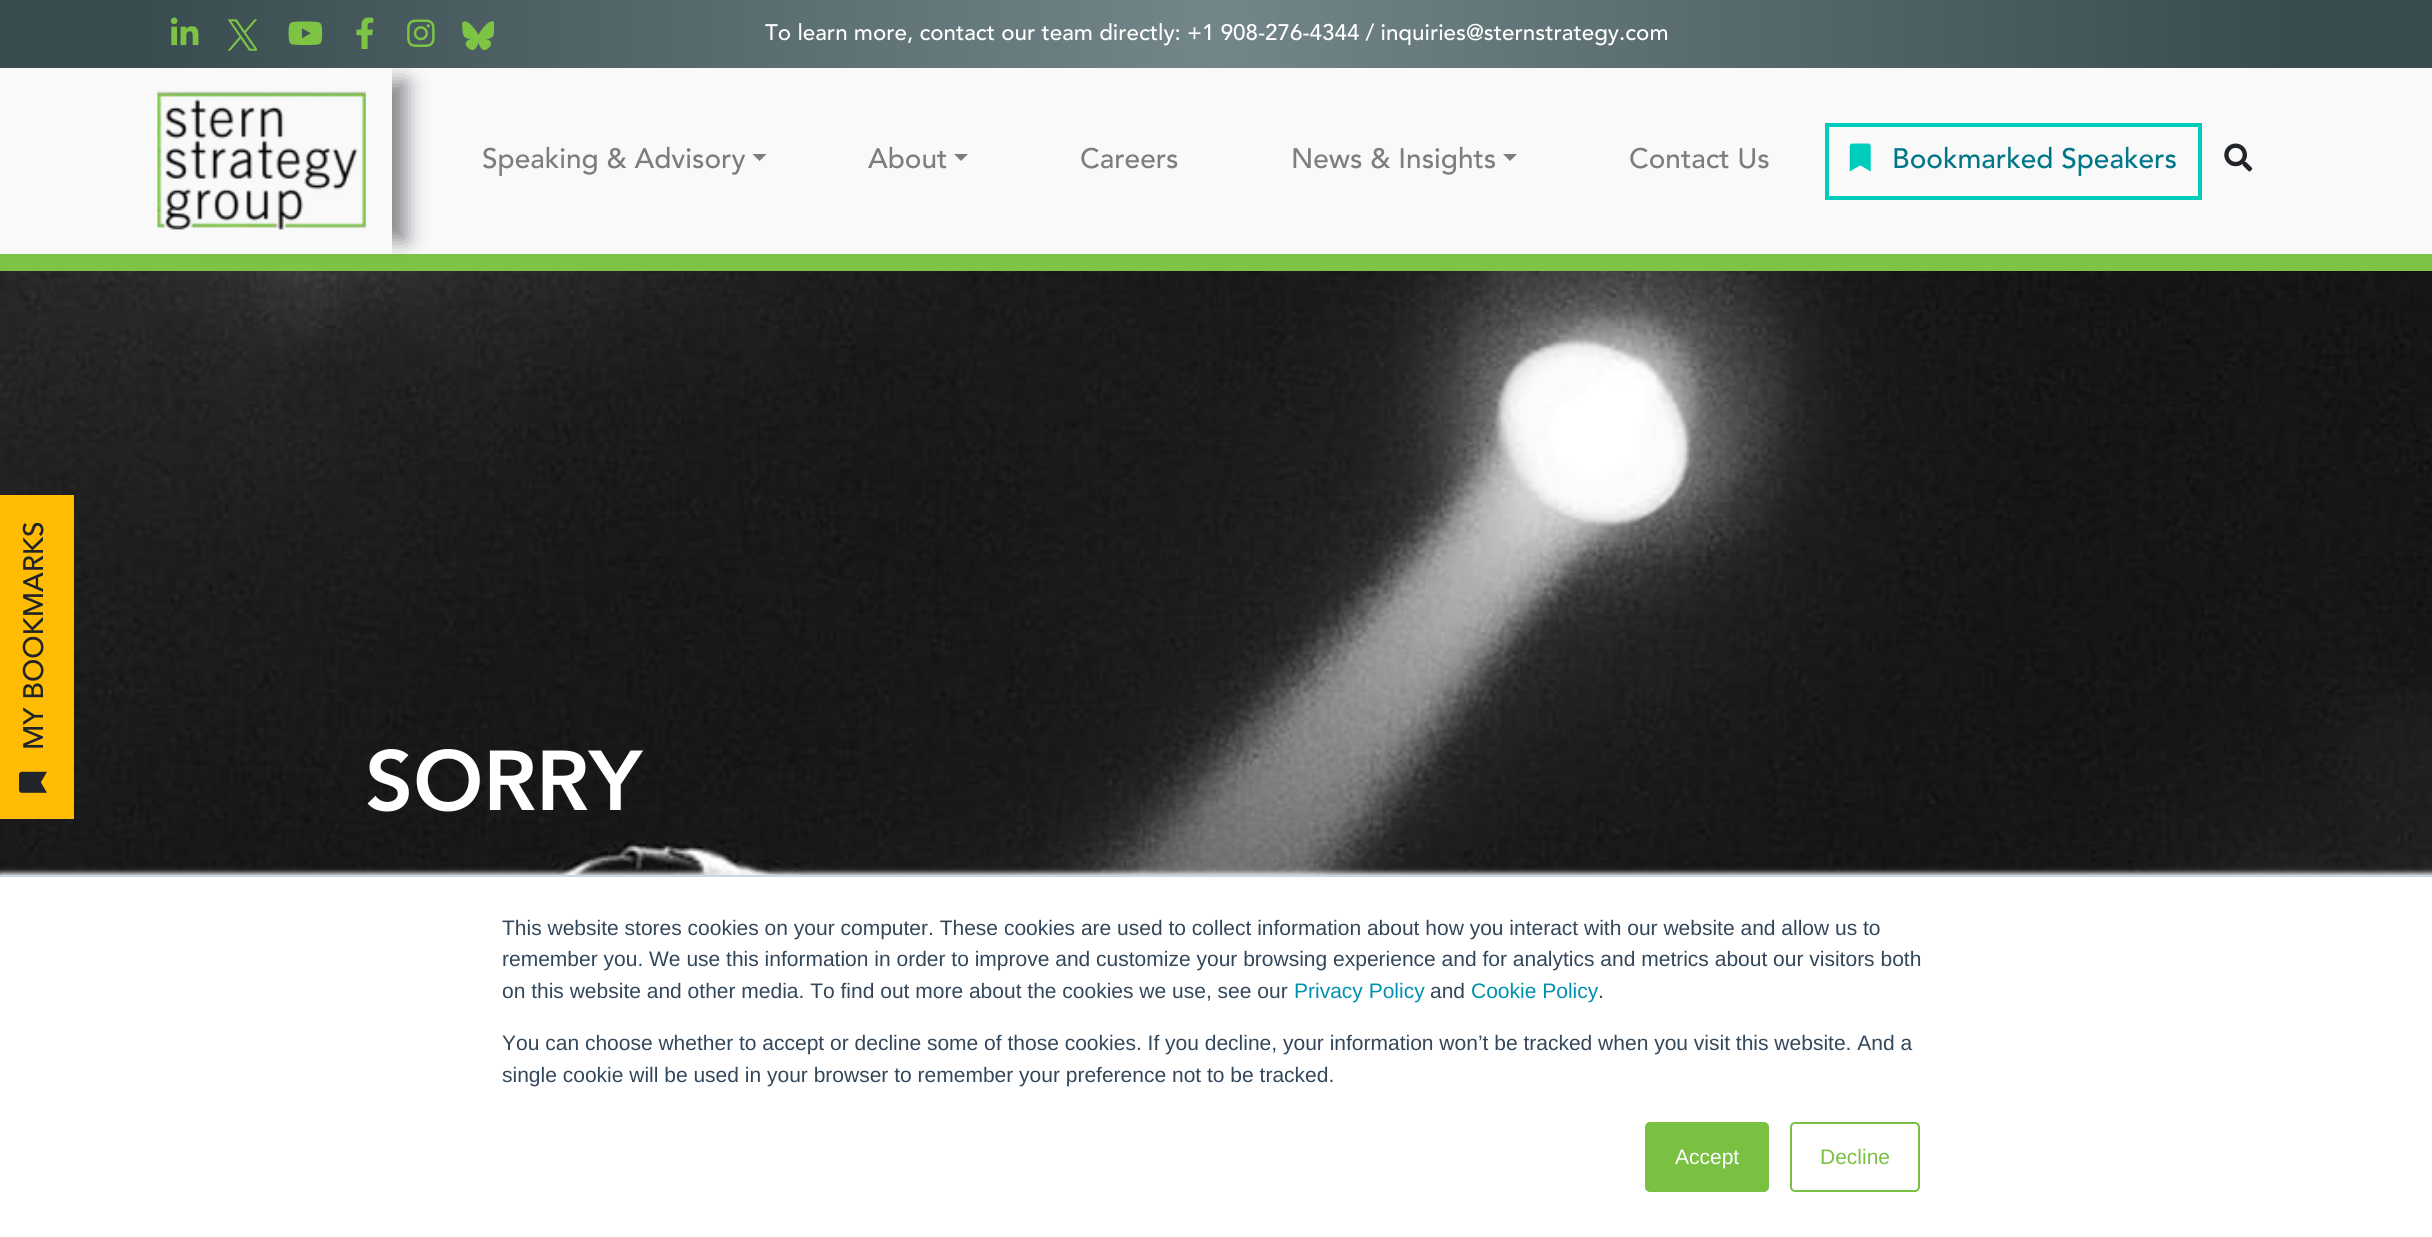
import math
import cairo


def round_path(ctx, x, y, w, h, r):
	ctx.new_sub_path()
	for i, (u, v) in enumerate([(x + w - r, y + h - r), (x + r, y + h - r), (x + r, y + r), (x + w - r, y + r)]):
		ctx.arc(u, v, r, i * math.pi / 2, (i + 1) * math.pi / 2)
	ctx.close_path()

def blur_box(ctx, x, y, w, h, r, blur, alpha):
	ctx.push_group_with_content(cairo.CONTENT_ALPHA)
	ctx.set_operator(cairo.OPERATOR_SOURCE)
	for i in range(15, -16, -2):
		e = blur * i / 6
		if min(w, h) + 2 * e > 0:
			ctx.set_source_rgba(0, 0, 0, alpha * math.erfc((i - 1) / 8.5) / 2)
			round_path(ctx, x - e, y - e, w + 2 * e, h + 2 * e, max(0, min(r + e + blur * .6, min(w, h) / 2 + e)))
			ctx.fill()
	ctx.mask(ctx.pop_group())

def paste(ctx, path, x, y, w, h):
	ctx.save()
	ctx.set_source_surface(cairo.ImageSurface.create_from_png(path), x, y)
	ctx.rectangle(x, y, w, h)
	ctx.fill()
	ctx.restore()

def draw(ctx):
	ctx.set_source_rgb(1, 1, 1)
	ctx.paint()
	gradient = cairo.LinearGradient(131, 34, 2301, 34)
	gradient.add_color_stop_rgba(0, 0.22, 0.294, 0.31, 1)
	gradient.add_color_stop_rgba(0.5, 0.451, 0.525, 0.541, 1)
	gradient.add_color_stop_rgba(1, 0.22, 0.294, 0.31, 1)
	ctx.set_source(gradient)
	ctx.rectangle(131, 0, 2170, 68)
	ctx.fill()
	ctx.set_source_rgb(0.22, 0.294, 0.31)
	ctx.rectangle(2301, 0, 131, 68)
	ctx.fill()
	ctx.rectangle(0, 0, 131, 68)
	ctx.fill()
	paste(ctx, 'media/1.png', 170, 17, 29, 29)
	paste(ctx, 'media/2.png', 228, 19, 29, 32)
	paste(ctx, 'media/3.png', 288, 21, 35, 25)
	paste(ctx, 'media/4.png', 356, 17, 18, 32)
	paste(ctx, 'media/5.png', 407, 19, 28, 28)
	paste(ctx, 'media/6.png', 462, 21, 32, 29)
	ctx.select_font_face('Avenir Medium')
	ctx.set_font_size(22.4)
	ctx.set_source_rgb(1, 1, 1)
	ctx.move_to(765, 40)
	ctx.show_text('To learn more, contact our team directly: +1 908-276-4344 / inquiries@sternstrategy.com')
	ctx.set_source_rgb(0.973, 0.976, 0.98)
	ctx.rectangle(0, 68, 2432, 186)
	ctx.fill()
	ctx.set_source_rgb(0.49, 0.769, 0.271)
	ctx.rectangle(0, 254, 2432, 17)
	ctx.fill()
	paste(ctx, 'media/11.png', 0, 271, 2432, 604)
	ctx.save()
	ctx.set_fill_rule(cairo.FILL_RULE_EVEN_ODD)
	ctx.new_path()
	ctx.move_to(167, 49)
	ctx.line_to(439, 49)
	ctx.line_to(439, 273)
	ctx.line_to(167, 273)
	ctx.close_path()
	ctx.move_to(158, 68)
	ctx.line_to(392, 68)
	ctx.line_to(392, 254)
	ctx.line_to(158, 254)
	ctx.close_path()
	ctx.clip()
	ctx.set_source_rgb(0.322, 0.333, 0.357)
	blur_box(ctx, 200, 82, 206, 158, 0, 10.5, 0.7)
	ctx.restore()
	paste(ctx, 'media/7.png', 157, 91, 209, 139)
	ctx.set_font_size(28)
	ctx.set_source_rgb(0.486, 0.49, 0.49)
	ctx.move_to(482, 168)
	ctx.show_text('Speaking & Advisory')
	ctx.new_path()
	ctx.move_to(752.5, 154)
	ctx.line_to(766.5, 154)
	ctx.line_to(759.5, 161)
	ctx.close_path()
	ctx.fill()
	ctx.move_to(868, 168)
	ctx.show_text('About')
	ctx.new_path()
	ctx.move_to(954, 154)
	ctx.line_to(968, 154)
	ctx.line_to(961, 161)
	ctx.close_path()
	ctx.fill()
	ctx.move_to(1080, 168)
	ctx.show_text('Careers')
	ctx.move_to(1291, 168)
	ctx.show_text('News & Insights')
	ctx.new_path()
	ctx.move_to(1503, 154)
	ctx.line_to(1517, 154)
	ctx.line_to(1510, 161)
	ctx.close_path()
	ctx.fill()
	ctx.move_to(1629, 168)
	ctx.show_text('Contact Us')
	ctx.rectangle(1827, 125, 373, 73)
	ctx.set_source_rgb(0, 0.8, 0.733)
	ctx.set_line_width(4)
	ctx.stroke()
	paste(ctx, 'media/8.png', 1849, 143, 22, 29)
	ctx.set_source_rgb(0, 0.467, 0.533)
	ctx.move_to(1892, 168)
	ctx.show_text('Bookmarked Speakers')
	paste(ctx, 'media/9.png', 2224, 143, 29, 29)
	ctx.set_source_rgb(1, 0.737, 0.008)
	ctx.rectangle(0, 495, 74, 324)
	ctx.fill()
	ctx.set_source_rgb(0.129, 0.145, 0.161)
	ctx.save()
	ctx.translate(43, 750)
	ctx.rotate(-90 * math.pi / 180)
	ctx.move_to(0, 0)
	ctx.show_text('MY BOOKMARKS')
	ctx.restore()
	paste(ctx, 'media/10.png', 19, 771, 28, 22)
	ctx.select_font_face('Avenir Black')
	ctx.set_font_size(84)
	ctx.set_source_rgb(1, 1, 1)
	ctx.move_to(365, 810)
	ctx.show_text('SORRY')
	ctx.set_source_rgb(0.918, 0.941, 0.965)
	blur_box(ctx, 0, 873, 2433, 363, 0, 2.5, 1)
	ctx.set_source_rgb(1, 1, 1)
	ctx.rectangle(0, 877, 2432, 360)
	ctx.fill()
	ctx.set_source_rgb(0.796, 0.839, 0.886)
	ctx.rectangle(0, 875, 2432, 2)
	ctx.fill()
	ctx.select_font_face('Liberation Sans')
	ctx.set_font_size(21)
	ctx.set_source_rgb(0.2, 0.278, 0.357)
	for x, y, s in [
		(502, 935, 'This website stores cookies on your computer. These cookies are used to collect information about how you interact with our website and allow us to'),
		(502, 966, 'remember you. We use this information in order to improve and customize your browsing experience and for analytics and metrics about our visitors both'),
		(502, 998, 'on this website and other media. To find out more about the cookies we use, see our'),
	]:
		ctx.move_to(x, y)
		ctx.show_text(s)
	ctx.set_source_rgb(0, 0.569, 0.682)
	ctx.move_to(1294, 998)
	ctx.show_text('Privacy Policy')
	ctx.set_source_rgb(0.2, 0.278, 0.357)
	ctx.move_to(1430, 998)
	ctx.show_text('and')
	ctx.set_source_rgb(0, 0.569, 0.682)
	ctx.move_to(1471, 998)
	ctx.show_text('Cookie Policy')
	ctx.set_source_rgb(0.2, 0.278, 0.357)
	for x, y, s in [
		(1598, 998, '.'),
		(502, 1050, 'You can choose whether to accept or decline some of those cookies. If you decline, your information won’t be tracked when you visit this website. And a'),
		(502, 1082, 'single cookie will be used in your browser to remember your preference not to be tracked.'),
	]:
		ctx.move_to(x, y)
		ctx.show_text(s)
	ctx.set_source_rgb(0.478, 0.753, 0.263)
	round_path(ctx, 1646, 1123, 122, 68, 4)
	ctx.fill_preserve()
	ctx.set_line_width(2)
	ctx.stroke()
	ctx.set_source_rgb(1, 1, 1)
	ctx.move_to(1675, 1164)
	ctx.show_text('Accept')
	round_path(ctx, 1791, 1123, 128, 68, 4)
	ctx.set_source_rgb(0.478, 0.753, 0.263)
	ctx.stroke()
	ctx.move_to(1820, 1164)
	ctx.show_text('Decline')


surface = cairo.ImageSurface(cairo.FORMAT_RGB24, 2432, 1237)
ctx = cairo.Context(surface)
options = cairo.FontOptions()
options.set_hint_metrics(cairo.HINT_METRICS_OFF)
options.set_hint_style(cairo.HINT_STYLE_NONE)
ctx.set_font_options(options)
ctx.set_miter_limit(4)
draw(ctx)
surface.write_to_png('image.png')
